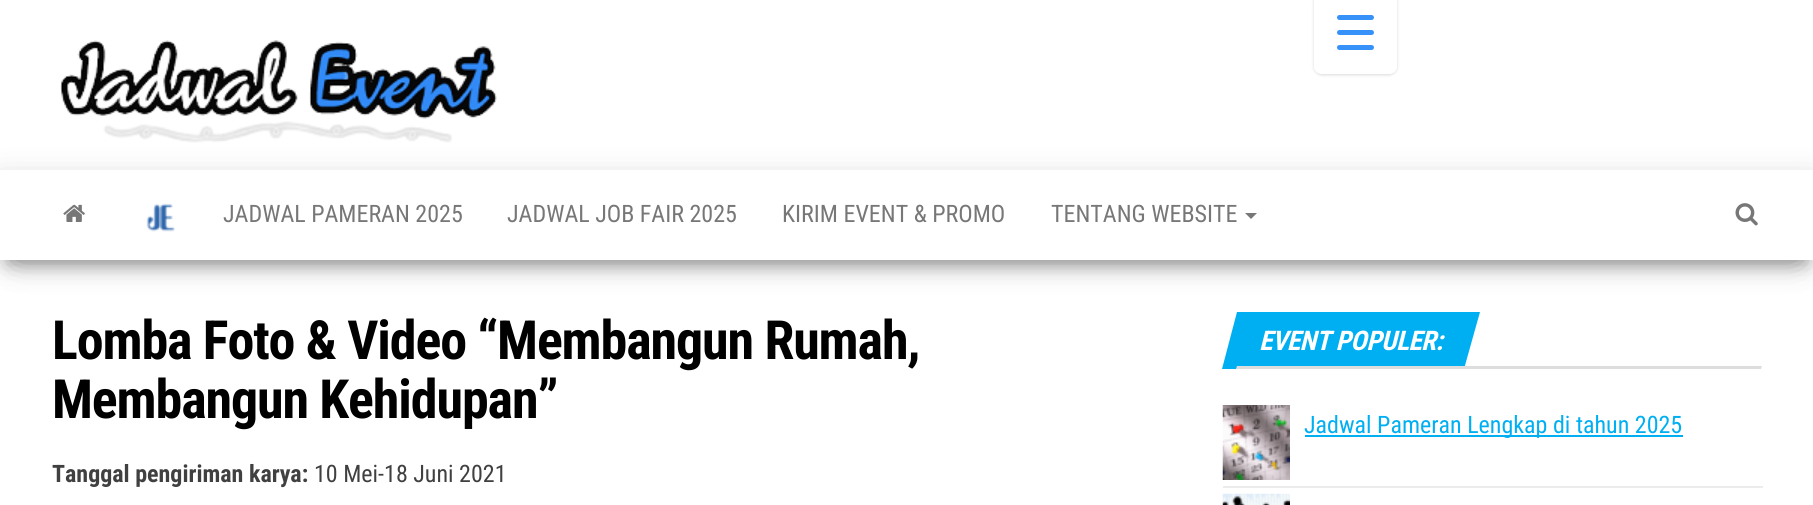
import math
import cairo


def write_spaced(ctx, x, y, s, letter, word):
	ctx.move_to(x, y)
	for ch in s:
		ctx.show_text(ch)
		ctx.rel_move_to(letter + word * (ch == ' '), 0)

def round_path(ctx, x, y, w, h, r):
	ctx.new_sub_path()
	for i, (u, v) in enumerate([(x + w - r, y + h - r), (x + r, y + h - r), (x + r, y + r), (x + w - r, y + r)]):
		ctx.arc(u, v, r, i * math.pi / 2, (i + 1) * math.pi / 2)
	ctx.close_path()

def blur_box(ctx, x, y, w, h, r, blur, alpha):
	ctx.push_group_with_content(cairo.CONTENT_ALPHA)
	ctx.set_operator(cairo.OPERATOR_SOURCE)
	for i in range(15, -16, -2):
		e = blur * i / 6
		if min(w, h) + 2 * e > 0:
			ctx.set_source_rgba(0, 0, 0, alpha * math.erfc((i - 1) / 8.5) / 2)
			round_path(ctx, x - e, y - e, w + 2 * e, h + 2 * e, max(0, min(r + e + blur * .6, min(w, h) / 2 + e)))
			ctx.fill()
	ctx.mask(ctx.pop_group())

def paste(ctx, path, x, y, w, h):
	ctx.save()
	ctx.set_source_surface(cairo.ImageSurface.create_from_png(path), x, y)
	ctx.rectangle(x, y, w, h)
	ctx.fill()
	ctx.restore()

def draw(ctx):
	ctx.set_source_rgb(1, 1, 1)
	ctx.paint()
	ctx.set_source_rgb(0, 0, 0)
	blur_box(ctx, 0, 174, 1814, 90, 0, 15, 0.12)
	paste(ctx, 'media/1.png', 60, 40, 437, 103)
	ctx.save()
	ctx.set_fill_rule(cairo.FILL_RULE_EVEN_ODD)
	ctx.new_path()
	ctx.move_to(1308, 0)
	ctx.line_to(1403, 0)
	ctx.line_to(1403, 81)
	ctx.line_to(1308, 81)
	ctx.close_path()
	ctx.move_to(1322, -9)
	ctx.line_to(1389, -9)
	ctx.curve_to(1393.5, -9, 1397, -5.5, 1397, -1)
	ctx.line_to(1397, 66)
	ctx.curve_to(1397, 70.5, 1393.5, 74, 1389, 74)
	ctx.line_to(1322, 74)
	ctx.curve_to(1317.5, 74, 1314, 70.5, 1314, 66)
	ctx.line_to(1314, -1)
	ctx.curve_to(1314, -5.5, 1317.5, -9, 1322, -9)
	ctx.close_path()
	ctx.clip()
	blur_box(ctx, 1314, -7, 83, 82, 8, 1.5, 0.15)
	ctx.restore()
	ctx.set_source_rgb(0.212, 0.573, 0.969)
	round_path(ctx, 1337, 30, 37, 5, 2.5)
	ctx.fill()
	round_path(ctx, 1337, 15, 37, 5, 2.5)
	ctx.fill()
	round_path(ctx, 1337, 45, 37, 5, 2.5)
	ctx.fill()
	ctx.set_source_rgb(0, 0, 0)
	blur_box(ctx, 8, 189, 1798, 75, 0, 7.5, 0.2)
	blur_box(ctx, 18, 203, 1778, 54, 0, 15, 0.42)
	ctx.set_source_rgb(1, 1, 1)
	ctx.rectangle(0, 170, 1813, 90)
	ctx.fill()
	paste(ctx, 'media/2.png', 63, 204, 22, 18)
	paste(ctx, 'media/3.png', 146, 203, 29, 29)
	ctx.select_font_face('Roboto Condensed')
	ctx.set_font_size(24)
	ctx.set_source_rgb(0.467, 0.467, 0.467)
	for x, y, s in [
		(223, 222, 'JADWAL PAMERAN 2025'),
		(507, 222, 'JADWAL JOB FAIR 2025'),
		(782, 222, 'KIRIM EVENT & PROMO'),
		(1051, 222, 'TENTANG WEBSITE'),
	]:
		ctx.move_to(x, y)
		ctx.show_text(s)
	ctx.new_path()
	ctx.move_to(1245, 213)
	ctx.line_to(1257, 213)
	ctx.line_to(1251, 219)
	ctx.close_path()
	ctx.fill()
	paste(ctx, 'media/4.png', 1735, 203, 23, 23)
	ctx.select_font_face('Roboto Condensed', cairo.FONT_SLANT_NORMAL, cairo.FONT_WEIGHT_BOLD)
	ctx.set_font_size(54)
	ctx.set_source_rgb(0, 0, 0)
	write_spaced(ctx, 52, 359, 'Lomba Foto & Video “Membangun Rumah,', -1.1, 0)
	write_spaced(ctx, 52, 418, 'Membangun Kehidupan”', -1.1, 0)
	ctx.set_font_size(24)
	ctx.set_source_rgb(0.251, 0.251, 0.251)
	ctx.move_to(52, 482)
	ctx.show_text('Tanggal pengiriman karya:')
	ctx.select_font_face('Roboto Condensed')
	ctx.move_to(314, 482)
	ctx.show_text('10 Mei-18 Juni 2021')
	ctx.set_source_rgb(0, 0.686, 0.949)
	ctx.new_path()
	ctx.move_to(1237, 312)
	ctx.line_to(1480, 312)
	ctx.line_to(1464, 369)
	ctx.line_to(1222, 369)
	ctx.close_path()
	ctx.fill()
	ctx.select_font_face('Roboto Condensed', cairo.FONT_SLANT_ITALIC, cairo.FONT_WEIGHT_BOLD)
	ctx.set_font_size(27)
	ctx.set_source_rgb(1, 1, 1)
	write_spaced(ctx, 1259, 350, 'EVENT POPULER:', -0.5, 0)
	ctx.set_source_rgb(0.867, 0.867, 0.867)
	ctx.new_path()
	ctx.move_to(1237, 366)
	ctx.line_to(1762, 366)
	ctx.line_to(1761, 369)
	ctx.line_to(1236, 369)
	ctx.close_path()
	ctx.fill()
	ctx.set_source_rgb(0.922, 0.922, 0.922)
	ctx.rectangle(1223, 486, 540, 2)
	ctx.fill()
	paste(ctx, 'media/5.png', 1222, 405, 68, 75)
	ctx.set_source_rgb(0, 0.686, 0.949)
	ctx.rectangle(1305, 435, 378, 2)
	ctx.fill()
	ctx.select_font_face('Roboto Condensed')
	ctx.set_font_size(24)
	ctx.move_to(1304, 433)
	ctx.show_text('Jadwal Pameran Lengkap di tahun 2025')
	paste(ctx, 'media/6.png', 1222, 493, 68, 12)


surface = cairo.ImageSurface(cairo.FORMAT_RGB24, 1813, 505)
ctx = cairo.Context(surface)
options = cairo.FontOptions()
options.set_hint_metrics(cairo.HINT_METRICS_OFF)
options.set_hint_style(cairo.HINT_STYLE_NONE)
ctx.set_font_options(options)
ctx.set_miter_limit(4)
draw(ctx)
surface.write_to_png('image.png')
